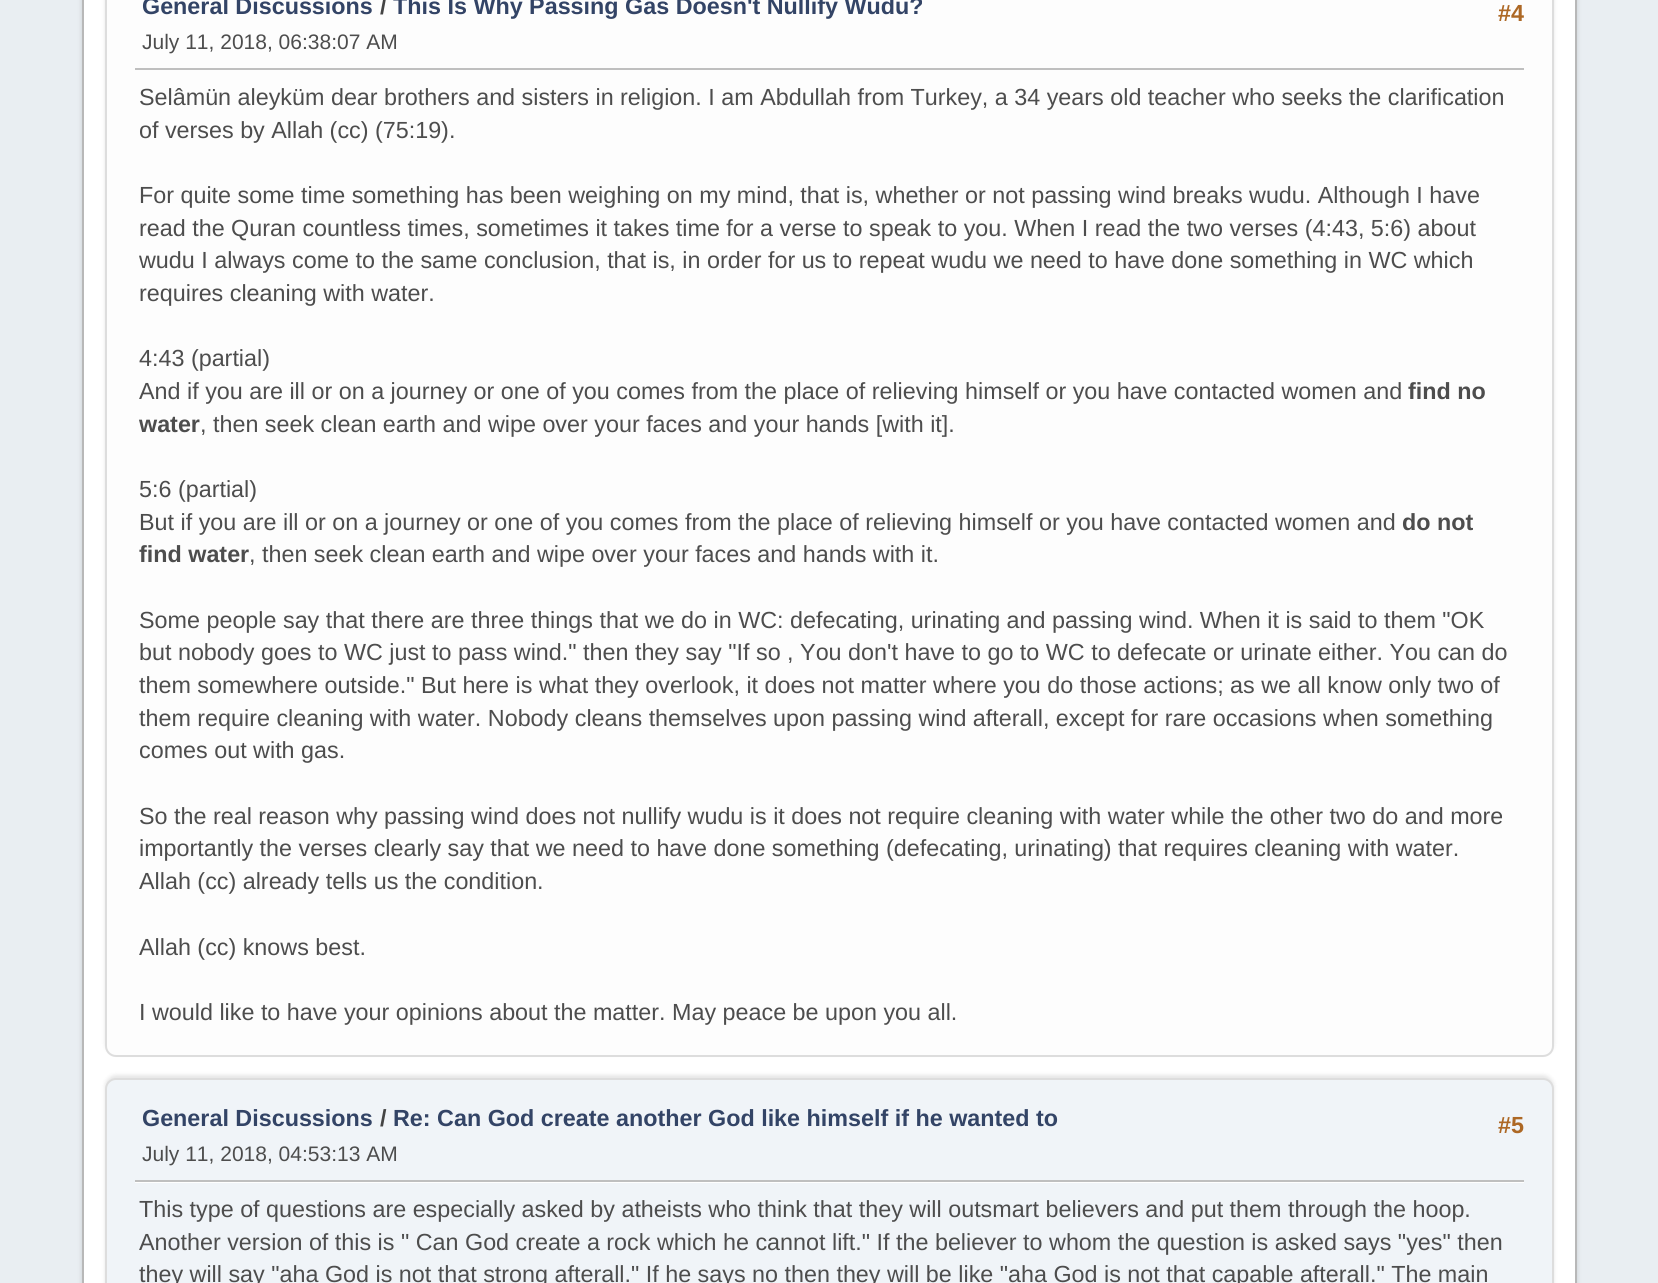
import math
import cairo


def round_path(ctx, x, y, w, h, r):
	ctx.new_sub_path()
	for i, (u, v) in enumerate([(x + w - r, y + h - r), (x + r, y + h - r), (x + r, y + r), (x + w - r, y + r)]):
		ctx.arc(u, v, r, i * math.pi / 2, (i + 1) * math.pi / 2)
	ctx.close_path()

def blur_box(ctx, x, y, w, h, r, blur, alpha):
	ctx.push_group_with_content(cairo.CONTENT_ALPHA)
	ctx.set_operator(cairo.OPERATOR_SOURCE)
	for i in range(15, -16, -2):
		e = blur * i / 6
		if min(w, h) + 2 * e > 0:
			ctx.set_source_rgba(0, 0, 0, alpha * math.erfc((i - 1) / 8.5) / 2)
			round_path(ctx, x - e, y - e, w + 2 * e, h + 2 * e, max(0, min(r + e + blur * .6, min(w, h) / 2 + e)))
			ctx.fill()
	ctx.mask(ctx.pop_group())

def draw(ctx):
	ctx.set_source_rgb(0.914, 0.933, 0.949)
	ctx.paint()
	ctx.set_source_rgb(0, 0, 0)
	blur_box(ctx, 82, -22, 1495, 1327, 14, 2.5, 0.14)
	ctx.set_source_rgb(1, 1, 1)
	ctx.rectangle(83, -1, 1493, 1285)
	ctx.fill_preserve()
	ctx.set_source_rgb(0.722, 0.722, 0.722)
	ctx.stroke()
	ctx.set_source_rgb(0, 0, 0)
	blur_box(ctx, 105, -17, 1449, 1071, 11, 2, 0.1)
	ctx.set_source_rgb(0.992, 0.992, 0.992)
	round_path(ctx, 106, -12, 1447, 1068, 10)
	ctx.fill_preserve()
	ctx.set_source_rgb(0.867, 0.867, 0.867)
	ctx.stroke()
	ctx.select_font_face('Liberation Sans', cairo.FONT_SLANT_NORMAL, cairo.FONT_WEIGHT_BOLD)
	ctx.set_font_size(23.33)
	ctx.set_source_rgb(0.2, 0.267, 0.4)
	ctx.move_to(142, 14)
	ctx.show_text('General Discussions')
	ctx.set_source_rgb(0.267, 0.267, 0.267)
	ctx.move_to(380, 14)
	ctx.show_text('/')
	ctx.set_source_rgb(0.2, 0.267, 0.4)
	ctx.move_to(393, 14)
	ctx.show_text('This Is Why Passing Gas Doesn\'t Nullify Wudu?')
	ctx.select_font_face('Liberation Sans')
	ctx.set_font_size(21)
	ctx.set_source_rgb(0.302, 0.302, 0.302)
	ctx.move_to(142, 49)
	ctx.show_text('July 11, 2018, 06:38:07 AM')
	ctx.select_font_face('Liberation Sans', cairo.FONT_SLANT_NORMAL, cairo.FONT_WEIGHT_BOLD)
	ctx.set_font_size(23.33)
	ctx.set_source_rgb(0.678, 0.408, 0.145)
	ctx.move_to(1498, 21)
	ctx.show_text('#4')
	ctx.set_source_rgb(0.749, 0.749, 0.749)
	ctx.rectangle(135, 68, 1389, 2)
	ctx.fill()
	ctx.select_font_face('Liberation Sans')
	ctx.set_source_rgb(0.302, 0.302, 0.302)
	for x, y, s in [
		(139, 105, 'Selâmün aleyküm dear brothers and sisters in religion. I am Abdullah from Turkey, a 34 years old teacher who seeks the clarification'),
		(139, 138, 'of verses by Allah (cc) (75:19).'),
		(139, 203, 'For quite some time something has been weighing on my mind, that is, whether or not passing wind breaks wudu. Although I have'),
		(139, 236, 'read the Quran countless times, sometimes it takes time for a verse to speak to you. When I read the two verses (4:43, 5:6) about'),
		(139, 268, 'wudu I always come to the same conclusion, that is, in order for us to repeat wudu we need to have done something in WC which'),
		(139, 301, 'requires cleaning with water.'),
		(139, 366, '4:43 (partial)'),
		(139, 399, 'And if you are ill or on a journey or one of you comes from the place of relieving himself or you have contacted women and'),
	]:
		ctx.move_to(x, y)
		ctx.show_text(s)
	ctx.select_font_face('Liberation Sans', cairo.FONT_SLANT_NORMAL, cairo.FONT_WEIGHT_BOLD)
	ctx.move_to(1408, 399)
	ctx.show_text('find no')
	ctx.move_to(139, 432)
	ctx.show_text('water')
	ctx.select_font_face('Liberation Sans')
	for x, y, s in [
		(200, 432, ', then seek clean earth and wipe over your faces and your hands [with it].'),
		(139, 497, '5:6 (partial)'),
		(139, 530, 'But if you are ill or on a journey or one of you comes from the place of relieving himself or you have contacted women and'),
	]:
		ctx.move_to(x, y)
		ctx.show_text(s)
	ctx.select_font_face('Liberation Sans', cairo.FONT_SLANT_NORMAL, cairo.FONT_WEIGHT_BOLD)
	ctx.move_to(1402, 530)
	ctx.show_text('do not')
	ctx.move_to(139, 562)
	ctx.show_text('find water')
	ctx.select_font_face('Liberation Sans')
	for x, y, s in [
		(249, 562, ', then seek clean earth and wipe over your faces and hands with it.'),
		(139, 628, 'Some people say that there are three things that we do in WC: defecating, urinating and passing wind. When it is said to them "OK'),
		(139, 660, 'but nobody goes to WC just to pass wind." then they say "If so , You don\'t have to go to WC to defecate or urinate either. You can do'),
		(139, 693, 'them somewhere outside." But here is what they overlook, it does not matter where you do those actions; as we all know only two of'),
		(139, 726, 'them require cleaning with water. Nobody cleans themselves upon passing wind afterall, except for rare occasions when something'),
		(139, 758, 'comes out with gas.'),
		(139, 824, 'So the real reason why passing wind does not nullify wudu is it does not require cleaning with water while the other two do and more'),
		(139, 856, 'importantly the verses clearly say that we need to have done something (defecating, urinating) that requires cleaning with water.'),
		(139, 889, 'Allah (cc) already tells us the condition.'),
		(139, 955, 'Allah (cc) knows best.'),
		(139, 1020, 'I would like to have your opinions about the matter. May peace be upon you all.'),
	]:
		ctx.move_to(x, y)
		ctx.show_text(s)
	ctx.set_source_rgb(0, 0, 0)
	blur_box(ctx, 105, 1075, 1449, 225, 11, 2, 0.1)
	ctx.set_source_rgb(0.941, 0.957, 0.969)
	round_path(ctx, 106, 1079, 1447, 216, 10)
	ctx.fill_preserve()
	ctx.set_source_rgb(0.867, 0.867, 0.867)
	ctx.stroke()
	ctx.select_font_face('Liberation Sans', cairo.FONT_SLANT_NORMAL, cairo.FONT_WEIGHT_BOLD)
	ctx.set_source_rgb(0.2, 0.267, 0.4)
	ctx.move_to(142, 1126)
	ctx.show_text('General Discussions')
	ctx.set_source_rgb(0.267, 0.267, 0.267)
	ctx.move_to(380, 1126)
	ctx.show_text('/')
	ctx.set_source_rgb(0.2, 0.267, 0.4)
	ctx.move_to(393, 1126)
	ctx.show_text('Re: Can God create another God like himself if he wanted to')
	ctx.select_font_face('Liberation Sans')
	ctx.set_font_size(21)
	ctx.set_source_rgb(0.302, 0.302, 0.302)
	ctx.move_to(142, 1161)
	ctx.show_text('July 11, 2018, 04:53:13 AM')
	ctx.select_font_face('Liberation Sans', cairo.FONT_SLANT_NORMAL, cairo.FONT_WEIGHT_BOLD)
	ctx.set_font_size(23.33)
	ctx.set_source_rgb(0.678, 0.408, 0.145)
	ctx.move_to(1498, 1133)
	ctx.show_text('#5')
	ctx.set_source_rgb(1, 1, 1)
	ctx.rectangle(135, 1182, 1389, 1)
	ctx.fill()
	ctx.set_source_rgb(0.749, 0.749, 0.749)
	ctx.rectangle(135, 1180, 1389, 2)
	ctx.fill()
	ctx.select_font_face('Liberation Sans')
	ctx.set_source_rgb(0.302, 0.302, 0.302)
	for x, y, s in [
		(139, 1217, 'This type of questions are especially asked by atheists who think that they will outsmart believers and put them through the hoop.'),
		(139, 1250, 'Another version of this is " Can God create a rock which he cannot lift." If the believer to whom the question is asked says "yes" then'),
		(139, 1282, 'they will say "aha God is not that strong afterall." If he says no then they will be like "aha God is not that capable afterall." The main'),
	]:
		ctx.move_to(x, y)
		ctx.show_text(s)


surface = cairo.ImageSurface(cairo.FORMAT_RGB24, 1658, 1283)
ctx = cairo.Context(surface)
options = cairo.FontOptions()
options.set_hint_metrics(cairo.HINT_METRICS_OFF)
options.set_hint_style(cairo.HINT_STYLE_NONE)
ctx.set_font_options(options)
ctx.set_miter_limit(4)
draw(ctx)
surface.write_to_png('image.png')
